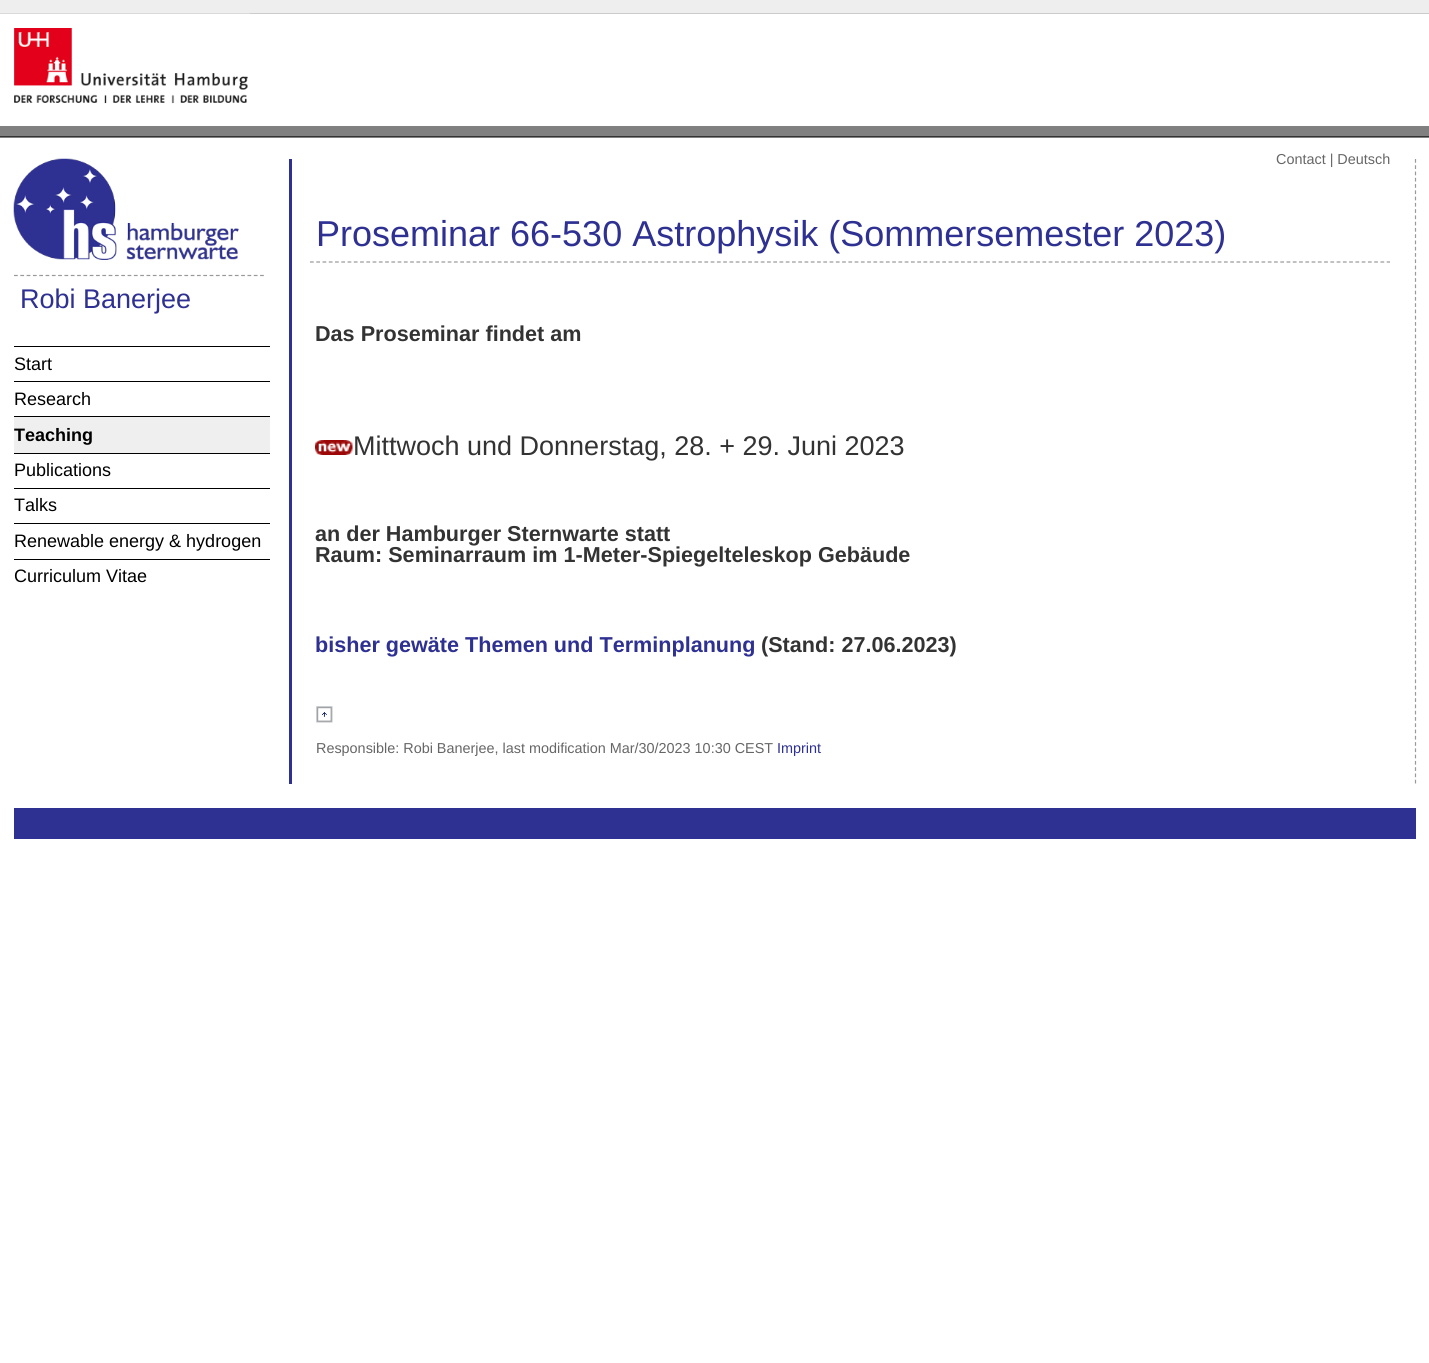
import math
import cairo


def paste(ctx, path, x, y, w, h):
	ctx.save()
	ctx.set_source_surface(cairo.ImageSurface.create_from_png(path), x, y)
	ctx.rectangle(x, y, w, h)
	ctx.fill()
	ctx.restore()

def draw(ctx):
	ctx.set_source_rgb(1, 1, 1)
	ctx.paint()
	ctx.set_source_rgb(0.933, 0.933, 0.933)
	ctx.rectangle(0, 0, 1429, 13)
	ctx.fill()
	ctx.set_source_rgb(0.8, 0.8, 0.8)
	ctx.rectangle(0, 13, 1429, 1)
	ctx.fill()
	paste(ctx, 'media/1.png', 0, 13, 250, 91)
	ctx.set_source_rgb(0.502, 0.502, 0.502)
	ctx.rectangle(0, 126, 1429, 12)
	ctx.fill()
	ctx.set_source_rgb(0.2, 0.2, 0.2)
	ctx.rectangle(0, 136, 1429, 1)
	ctx.fill()
	paste(ctx, 'media/2.png', 13, 158, 226, 102)
	ctx.new_path()
	ctx.move_to(14, 275.5)
	ctx.line_to(264, 275.5)
	ctx.set_source_rgb(0.6, 0.6, 0.6)
	ctx.set_line_width(1.2)
	ctx.set_dash([3.75, 2.56])
	ctx.stroke()
	ctx.select_font_face('Liberation Sans')
	ctx.set_font_size(27)
	ctx.set_source_rgb(0.18, 0.192, 0.573)
	ctx.move_to(20, 308)
	ctx.show_text('Robi Banerjee')
	ctx.set_source_rgb(0, 0, 0)
	ctx.rectangle(14, 346, 256, 1)
	ctx.fill()
	ctx.set_font_size(18)
	ctx.move_to(14, 370)
	ctx.show_text('Start')
	ctx.rectangle(14, 381, 256, 1)
	ctx.fill()
	ctx.move_to(14, 405)
	ctx.show_text('Research')
	ctx.set_source_rgb(0.937, 0.937, 0.937)
	ctx.rectangle(14, 417, 256, 36)
	ctx.fill()
	ctx.set_source_rgb(0, 0, 0)
	ctx.rectangle(14, 416, 256, 1)
	ctx.fill()
	ctx.select_font_face('Liberation Sans', cairo.FONT_SLANT_NORMAL, cairo.FONT_WEIGHT_BOLD)
	ctx.move_to(14, 441)
	ctx.show_text('Teaching')
	ctx.rectangle(14, 453, 256, 1)
	ctx.fill()
	ctx.select_font_face('Liberation Sans')
	ctx.move_to(14, 476)
	ctx.show_text('Publications')
	ctx.rectangle(14, 488, 256, 1)
	ctx.fill()
	ctx.move_to(14, 511)
	ctx.show_text('Talks')
	ctx.rectangle(14, 523, 256, 1)
	ctx.fill()
	ctx.move_to(14, 547)
	ctx.show_text('Renewable energy & hydrogen')
	ctx.rectangle(14, 559, 256, 1)
	ctx.fill()
	ctx.move_to(14, 582)
	ctx.show_text('Curriculum Vitae')
	ctx.new_path()
	ctx.move_to(1415.5, 159)
	ctx.line_to(1415.5, 784)
	ctx.set_source_rgb(0.6, 0.6, 0.6)
	ctx.set_dash([3.75, 2.52])
	ctx.stroke()
	ctx.set_source_rgb(0.18, 0.192, 0.573)
	ctx.rectangle(289, 159, 3, 625)
	ctx.fill()
	ctx.set_font_size(14.4)
	ctx.set_source_rgb(0.4, 0.4, 0.4)
	ctx.move_to(1276, 164)
	ctx.show_text('Contact | Deutsch')
	ctx.new_path()
	ctx.move_to(310, 262)
	ctx.line_to(1390, 262)
	ctx.set_source_rgb(0.6, 0.6, 0.6)
	ctx.set_dash([3.75, 2.51])
	ctx.stroke()
	ctx.set_font_size(36)
	ctx.set_source_rgb(0.18, 0.192, 0.573)
	ctx.move_to(316, 246)
	ctx.show_text('Proseminar 66-530 Astrophysik (Sommersemester 2023)')
	ctx.select_font_face('Liberation Sans', cairo.FONT_SLANT_NORMAL, cairo.FONT_WEIGHT_BOLD)
	ctx.set_font_size(21.6)
	ctx.set_source_rgb(0.2, 0.2, 0.2)
	ctx.move_to(315, 341)
	ctx.show_text('Das Proseminar findet am')
	paste(ctx, 'media/3.png', 315, 440, 38, 15)
	ctx.select_font_face('Liberation Sans')
	ctx.set_font_size(27)
	ctx.move_to(353, 455)
	ctx.show_text('Mittwoch und Donnerstag, 28. + 29. Juni 2023')
	ctx.select_font_face('Liberation Sans', cairo.FONT_SLANT_NORMAL, cairo.FONT_WEIGHT_BOLD)
	ctx.set_font_size(21.6)
	ctx.move_to(315, 541)
	ctx.show_text('an der Hamburger Sternwarte statt')
	ctx.move_to(315, 562)
	ctx.show_text('Raum: Seminarraum im 1-Meter-Spiegelteleskop Gebäude')
	ctx.set_source_rgb(0.18, 0.192, 0.573)
	ctx.move_to(315, 652)
	ctx.show_text('bisher gewäte Themen und Terminplanung')
	ctx.set_source_rgb(0.2, 0.2, 0.2)
	ctx.move_to(761, 652)
	ctx.show_text('(Stand: 27.06.2023)')
	paste(ctx, 'media/4.png', 316, 706, 17, 17)
	ctx.select_font_face('Liberation Sans')
	ctx.set_font_size(14.4)
	ctx.set_source_rgb(0.4, 0.4, 0.4)
	ctx.move_to(316, 753)
	ctx.show_text('Responsible: Robi Banerjee, last modification Mar/30/2023 10:30 CEST')
	ctx.set_source_rgb(0.18, 0.192, 0.573)
	ctx.move_to(777, 753)
	ctx.show_text('Imprint')
	ctx.rectangle(14, 808, 1402, 31)
	ctx.fill()


surface = cairo.ImageSurface(cairo.FORMAT_RGB24, 1429, 1363)
ctx = cairo.Context(surface)
options = cairo.FontOptions()
options.set_hint_metrics(cairo.HINT_METRICS_OFF)
options.set_hint_style(cairo.HINT_STYLE_NONE)
ctx.set_font_options(options)
ctx.set_miter_limit(4)
draw(ctx)
surface.write_to_png('image.png')
